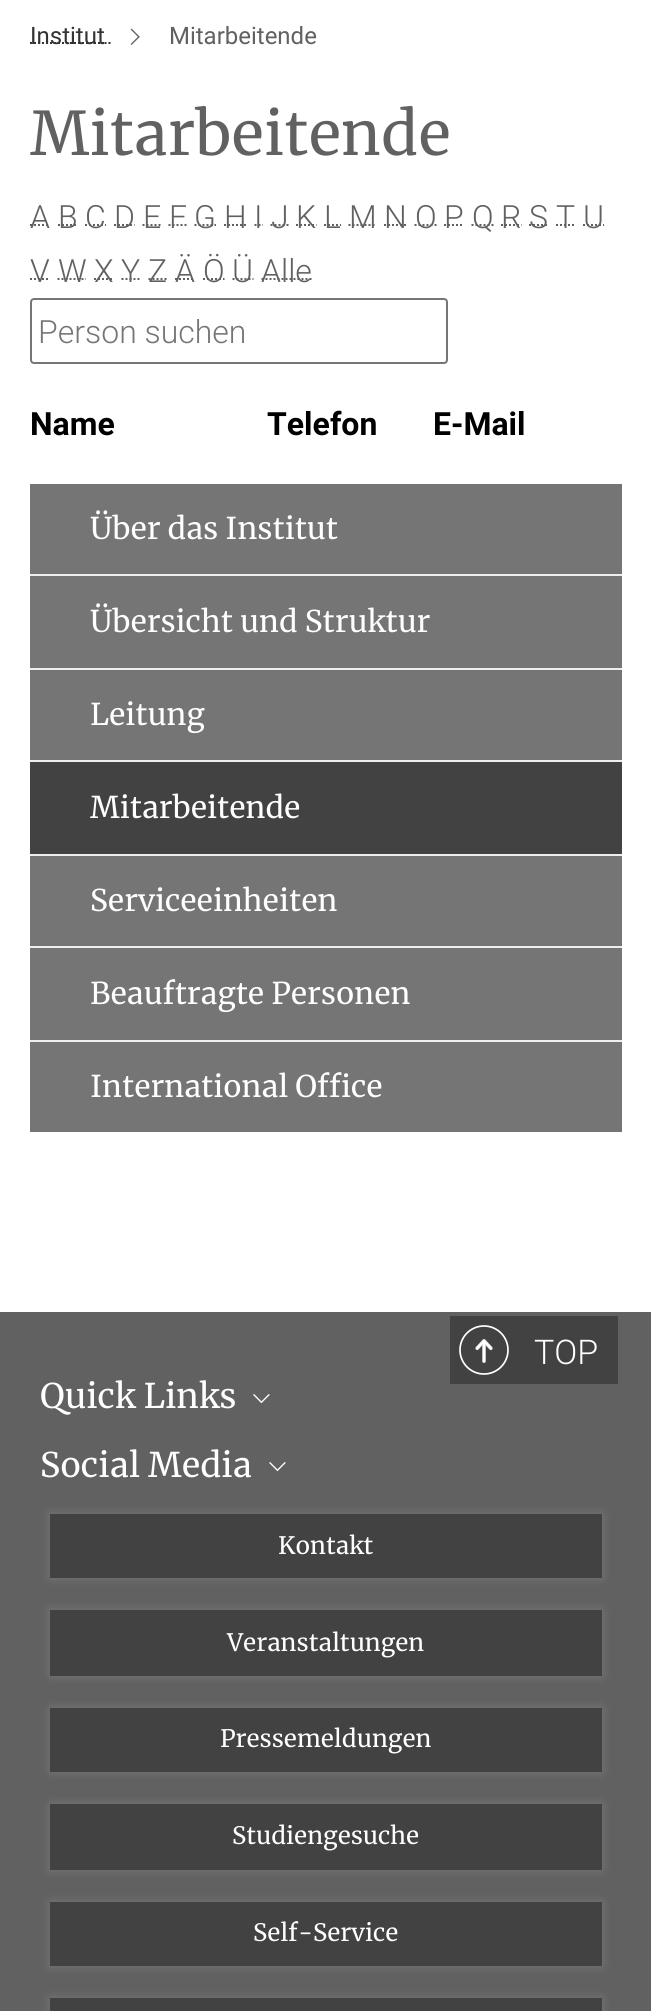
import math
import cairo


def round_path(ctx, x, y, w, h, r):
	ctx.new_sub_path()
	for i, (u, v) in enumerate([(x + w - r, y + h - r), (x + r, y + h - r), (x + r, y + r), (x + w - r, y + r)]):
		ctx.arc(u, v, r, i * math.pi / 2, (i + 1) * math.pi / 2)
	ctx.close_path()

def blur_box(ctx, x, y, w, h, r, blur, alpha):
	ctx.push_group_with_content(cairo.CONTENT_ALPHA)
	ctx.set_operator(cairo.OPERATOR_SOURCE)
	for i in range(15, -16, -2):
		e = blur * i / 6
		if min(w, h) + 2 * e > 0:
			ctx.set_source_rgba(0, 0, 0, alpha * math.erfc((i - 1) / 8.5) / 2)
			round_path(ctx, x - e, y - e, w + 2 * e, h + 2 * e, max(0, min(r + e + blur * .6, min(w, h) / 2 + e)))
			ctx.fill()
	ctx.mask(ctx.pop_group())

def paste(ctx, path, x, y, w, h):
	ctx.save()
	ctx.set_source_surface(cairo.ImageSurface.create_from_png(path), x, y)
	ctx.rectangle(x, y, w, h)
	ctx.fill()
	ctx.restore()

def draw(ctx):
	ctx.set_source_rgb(1, 1, 1)
	ctx.paint()
	ctx.new_path()
	ctx.move_to(30, 43)
	ctx.line_to(104.5, 43)
	ctx.set_source_rgb(0.2, 0.2, 0.2)
	ctx.set_dash([2, 2])
	ctx.stroke()
	ctx.select_font_face('Roboto')
	ctx.set_font_size(24)
	ctx.move_to(30, 44)
	ctx.show_text('Institut')
	ctx.new_path()
	ctx.move_to(104.5, 43)
	ctx.line_to(106.5, 43)
	ctx.move_to(108.5, 43)
	ctx.line_to(110.5, 43)
	ctx.set_dash([])
	ctx.stroke()
	paste(ctx, 'media/1.png', 130, 28, 10, 17)
	ctx.set_source_rgb(0.38, 0.38, 0.38)
	ctx.move_to(169, 44)
	ctx.show_text('Mitarbeitende')
	ctx.select_font_face('Merriweather')
	ctx.set_font_size(60)
	ctx.move_to(30, 155)
	ctx.show_text('Mitarbeitende')
	ctx.new_path()
	ctx.move_to(30, 225)
	ctx.line_to(50, 225)
	ctx.set_dash([2, 2])
	ctx.stroke()
	ctx.select_font_face('Roboto Light')
	ctx.set_font_size(32)
	ctx.move_to(30, 228)
	ctx.show_text('A')
	ctx.new_path()
	ctx.move_to(58, 225)
	ctx.line_to(77.5, 225)
	ctx.stroke()
	ctx.move_to(58, 228)
	ctx.show_text('B')
	ctx.new_path()
	ctx.move_to(85, 225)
	ctx.line_to(106, 225)
	ctx.stroke()
	ctx.move_to(85, 228)
	ctx.show_text('C')
	ctx.new_path()
	ctx.move_to(114, 225)
	ctx.line_to(134.5, 225)
	ctx.stroke()
	ctx.move_to(114, 228)
	ctx.show_text('D')
	ctx.new_path()
	ctx.move_to(142.5, 225)
	ctx.line_to(160.5, 225)
	ctx.stroke()
	ctx.move_to(143, 228)
	ctx.show_text('E')
	ctx.new_path()
	ctx.move_to(168.5, 225)
	ctx.line_to(186.5, 225)
	ctx.stroke()
	ctx.move_to(169, 228)
	ctx.show_text('F')
	ctx.new_path()
	ctx.move_to(194.5, 225)
	ctx.line_to(216, 225)
	ctx.stroke()
	ctx.move_to(194, 228)
	ctx.show_text('G')
	ctx.new_path()
	ctx.move_to(224, 225)
	ctx.line_to(246.5, 225)
	ctx.stroke()
	ctx.move_to(224, 228)
	ctx.show_text('H')
	ctx.new_path()
	ctx.move_to(254.5, 225)
	ctx.line_to(256.5, 225)
	ctx.move_to(258.5, 225)
	ctx.line_to(260.5, 225)
	ctx.move_to(262.5, 225)
	ctx.line_to(263, 225)
	ctx.set_dash([])
	ctx.stroke()
	ctx.move_to(254, 228)
	ctx.show_text('I')
	ctx.new_path()
	ctx.move_to(270.5, 225)
	ctx.line_to(288.5, 225)
	ctx.set_dash([2, 2])
	ctx.stroke()
	ctx.move_to(271, 228)
	ctx.show_text('J')
	ctx.new_path()
	ctx.move_to(296, 225)
	ctx.line_to(316.5, 225)
	ctx.stroke()
	ctx.move_to(296, 228)
	ctx.show_text('K')
	ctx.new_path()
	ctx.move_to(324, 225)
	ctx.line_to(341, 225)
	ctx.stroke()
	ctx.move_to(324, 228)
	ctx.show_text('L')
	ctx.new_path()
	ctx.move_to(348.5, 225)
	ctx.line_to(376.5, 225)
	ctx.stroke()
	ctx.move_to(349, 228)
	ctx.show_text('M')
	ctx.new_path()
	ctx.move_to(384, 225)
	ctx.line_to(407, 225)
	ctx.stroke()
	ctx.move_to(384, 228)
	ctx.show_text('N')
	ctx.new_path()
	ctx.move_to(414.5, 225)
	ctx.line_to(436.5, 225)
	ctx.stroke()
	ctx.move_to(415, 228)
	ctx.show_text('O')
	ctx.new_path()
	ctx.move_to(444, 225)
	ctx.line_to(464, 225)
	ctx.stroke()
	ctx.move_to(444, 228)
	ctx.show_text('P')
	ctx.new_path()
	ctx.move_to(471.5, 225)
	ctx.line_to(493.5, 225)
	ctx.stroke()
	ctx.move_to(472, 228)
	ctx.show_text('Q')
	ctx.new_path()
	ctx.move_to(501, 225)
	ctx.line_to(521.5, 225)
	ctx.stroke()
	ctx.move_to(501, 228)
	ctx.show_text('R')
	ctx.new_path()
	ctx.move_to(529, 225)
	ctx.line_to(548, 225)
	ctx.stroke()
	ctx.move_to(529, 228)
	ctx.show_text('S')
	ctx.new_path()
	ctx.move_to(556, 225)
	ctx.line_to(575, 225)
	ctx.stroke()
	ctx.move_to(556, 228)
	ctx.show_text('T')
	ctx.new_path()
	ctx.move_to(583, 225)
	ctx.line_to(604, 225)
	ctx.stroke()
	ctx.move_to(583, 228)
	ctx.show_text('U')
	ctx.new_path()
	ctx.move_to(30, 279)
	ctx.line_to(50, 279)
	ctx.stroke()
	ctx.move_to(30, 282)
	ctx.show_text('V')
	ctx.new_path()
	ctx.move_to(57.5, 279)
	ctx.line_to(86, 279)
	ctx.stroke()
	ctx.move_to(58, 282)
	ctx.show_text('W')
	ctx.new_path()
	ctx.move_to(94, 279)
	ctx.line_to(113.5, 279)
	ctx.stroke()
	ctx.move_to(94, 282)
	ctx.show_text('X')
	ctx.new_path()
	ctx.move_to(121.5, 279)
	ctx.line_to(140.5, 279)
	ctx.stroke()
	ctx.move_to(121, 282)
	ctx.show_text('Y')
	ctx.new_path()
	ctx.move_to(148.5, 279)
	ctx.line_to(167.5, 279)
	ctx.stroke()
	ctx.move_to(148, 282)
	ctx.show_text('Z')
	ctx.new_path()
	ctx.move_to(175, 279)
	ctx.line_to(195, 279)
	ctx.stroke()
	ctx.move_to(175, 282)
	ctx.show_text('Ä')
	ctx.new_path()
	ctx.move_to(203, 279)
	ctx.line_to(224.5, 279)
	ctx.stroke()
	ctx.move_to(203, 282)
	ctx.show_text('Ö')
	ctx.new_path()
	ctx.move_to(232.5, 279)
	ctx.line_to(253.5, 279)
	ctx.stroke()
	ctx.move_to(232, 282)
	ctx.show_text('Ü')
	ctx.new_path()
	ctx.move_to(261.5, 279)
	ctx.line_to(312, 279)
	ctx.stroke()
	ctx.move_to(261, 282)
	ctx.show_text('Alle')
	round_path(ctx, 31, 299, 416, 64, 3)
	ctx.set_source_rgb(0.463, 0.463, 0.463)
	ctx.set_dash([])
	ctx.stroke()
	ctx.set_source_rgb(0.459, 0.459, 0.459)
	ctx.move_to(38, 343)
	ctx.show_text('Person suchen')
	ctx.select_font_face('Roboto', cairo.FONT_SLANT_NORMAL, cairo.FONT_WEIGHT_BOLD)
	ctx.set_source_rgb(0, 0, 0)
	for x, y, s in [
		(30, 435, 'Name'),
		(267, 435, 'Telefon'),
		(433, 435, 'E-Mail'),
	]:
		ctx.move_to(x, y)
		ctx.show_text(s)
	ctx.set_source_rgb(0.459, 0.459, 0.459)
	ctx.rectangle(30, 484, 592, 90)
	ctx.fill()
	ctx.set_source_rgb(0.933, 0.933, 0.933)
	ctx.rectangle(30, 574, 592, 2)
	ctx.fill()
	ctx.select_font_face('Merriweather')
	ctx.set_font_size(30)
	ctx.set_source_rgb(1, 1, 1)
	ctx.move_to(90, 539)
	ctx.show_text('Über das Institut')
	ctx.set_source_rgb(0.459, 0.459, 0.459)
	ctx.rectangle(30, 576, 592, 92)
	ctx.fill()
	ctx.set_source_rgb(0.933, 0.933, 0.933)
	ctx.rectangle(30, 668, 592, 2)
	ctx.fill()
	ctx.set_source_rgb(1, 1, 1)
	ctx.move_to(90, 632)
	ctx.show_text('Übersicht und Struktur')
	ctx.set_source_rgb(0.459, 0.459, 0.459)
	ctx.rectangle(30, 670, 592, 90)
	ctx.fill()
	ctx.set_source_rgb(0.933, 0.933, 0.933)
	ctx.rectangle(30, 760, 592, 2)
	ctx.fill()
	ctx.set_source_rgb(1, 1, 1)
	ctx.move_to(90, 725)
	ctx.show_text('Leitung')
	ctx.set_source_rgb(0.259, 0.259, 0.259)
	ctx.rectangle(30, 762, 592, 92)
	ctx.fill()
	ctx.set_source_rgb(0.933, 0.933, 0.933)
	ctx.rectangle(30, 854, 592, 2)
	ctx.fill()
	ctx.set_source_rgb(1, 1, 1)
	ctx.move_to(90, 818)
	ctx.show_text('Mitarbeitende')
	ctx.set_source_rgb(0.459, 0.459, 0.459)
	ctx.rectangle(30, 856, 592, 90)
	ctx.fill()
	ctx.set_source_rgb(0.933, 0.933, 0.933)
	ctx.rectangle(30, 946, 592, 2)
	ctx.fill()
	ctx.set_source_rgb(1, 1, 1)
	ctx.move_to(90, 911)
	ctx.show_text('Serviceeinheiten')
	ctx.set_source_rgb(0.459, 0.459, 0.459)
	ctx.rectangle(30, 948, 592, 92)
	ctx.fill()
	ctx.set_source_rgb(0.933, 0.933, 0.933)
	ctx.rectangle(30, 1040, 592, 2)
	ctx.fill()
	ctx.set_source_rgb(1, 1, 1)
	ctx.move_to(90, 1004)
	ctx.show_text('Beauftragte Personen')
	ctx.set_source_rgb(0.459, 0.459, 0.459)
	ctx.rectangle(30, 1042, 592, 90)
	ctx.fill()
	ctx.set_source_rgb(1, 1, 1)
	ctx.move_to(90, 1097)
	ctx.show_text('International Office')
	ctx.set_source_rgb(0.38, 0.38, 0.38)
	ctx.rectangle(0, 1312, 651, 699)
	ctx.fill()
	ctx.set_source_rgb(0.259, 0.259, 0.259)
	ctx.rectangle(450, 1316, 168, 68)
	ctx.fill()
	paste(ctx, 'media/2.png', 475, 1339, 18, 24)
	paste(ctx, 'media/3.png', 459, 1325, 50, 50)
	ctx.select_font_face('Roboto Light')
	ctx.set_font_size(34)
	ctx.set_source_rgb(1, 1, 1)
	ctx.move_to(534, 1364)
	ctx.show_text('TOP')
	ctx.select_font_face('Merriweather')
	ctx.move_to(40, 1408)
	ctx.show_text('Quick Links')
	paste(ctx, 'media/4.png', 253, 1394, 17, 10)
	ctx.move_to(40, 1477)
	ctx.show_text('Social Media')
	paste(ctx, 'media/4.png', 269, 1462, 17, 10)
	ctx.set_source_rgb(1, 1, 1)
	blur_box(ctx, 50, 1514, 552, 64, 0, 5, 0.15)
	ctx.set_source_rgb(0.259, 0.259, 0.259)
	ctx.rectangle(50, 1514, 552, 64)
	ctx.fill()
	ctx.set_font_size(24)
	ctx.set_source_rgb(1, 1, 1)
	ctx.move_to(278, 1554)
	ctx.show_text('Kontakt')
	ctx.set_source_rgb(1, 1, 1)
	blur_box(ctx, 50, 1610, 552, 66, 0, 5, 0.15)
	ctx.set_source_rgb(0.259, 0.259, 0.259)
	ctx.rectangle(50, 1610, 552, 66)
	ctx.fill()
	ctx.set_source_rgb(1, 1, 1)
	ctx.move_to(227, 1651)
	ctx.show_text('Veranstaltungen')
	ctx.set_source_rgb(1, 1, 1)
	blur_box(ctx, 50, 1708, 552, 64, 0, 5, 0.15)
	ctx.set_source_rgb(0.259, 0.259, 0.259)
	ctx.rectangle(50, 1708, 552, 64)
	ctx.fill()
	ctx.set_source_rgb(1, 1, 1)
	ctx.move_to(220, 1747)
	ctx.show_text('Pressemeldungen')
	ctx.set_source_rgb(1, 1, 1)
	blur_box(ctx, 50, 1804, 552, 66, 0, 5, 0.15)
	ctx.set_source_rgb(0.259, 0.259, 0.259)
	ctx.rectangle(50, 1804, 552, 66)
	ctx.fill()
	ctx.set_source_rgb(1, 1, 1)
	ctx.move_to(232, 1844)
	ctx.show_text('Studiengesuche')
	ctx.set_source_rgb(1, 1, 1)
	blur_box(ctx, 50, 1902, 552, 64, 0, 5, 0.15)
	ctx.set_source_rgb(0.259, 0.259, 0.259)
	ctx.rectangle(50, 1902, 552, 64)
	ctx.fill()
	ctx.set_source_rgb(1, 1, 1)
	ctx.move_to(253, 1941)
	ctx.show_text('Self-Service')
	ctx.set_source_rgb(1, 1, 1)
	blur_box(ctx, 50, 1998, 552, 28, 0, 5, 0.15)
	ctx.set_source_rgb(0.259, 0.259, 0.259)
	ctx.rectangle(50, 1998, 552, 13)
	ctx.fill()


surface = cairo.ImageSurface(cairo.FORMAT_RGB24, 651, 2011)
ctx = cairo.Context(surface)
options = cairo.FontOptions()
options.set_hint_metrics(cairo.HINT_METRICS_OFF)
options.set_hint_style(cairo.HINT_STYLE_NONE)
ctx.set_font_options(options)
ctx.set_miter_limit(4)
draw(ctx)
surface.write_to_png('image.png')
